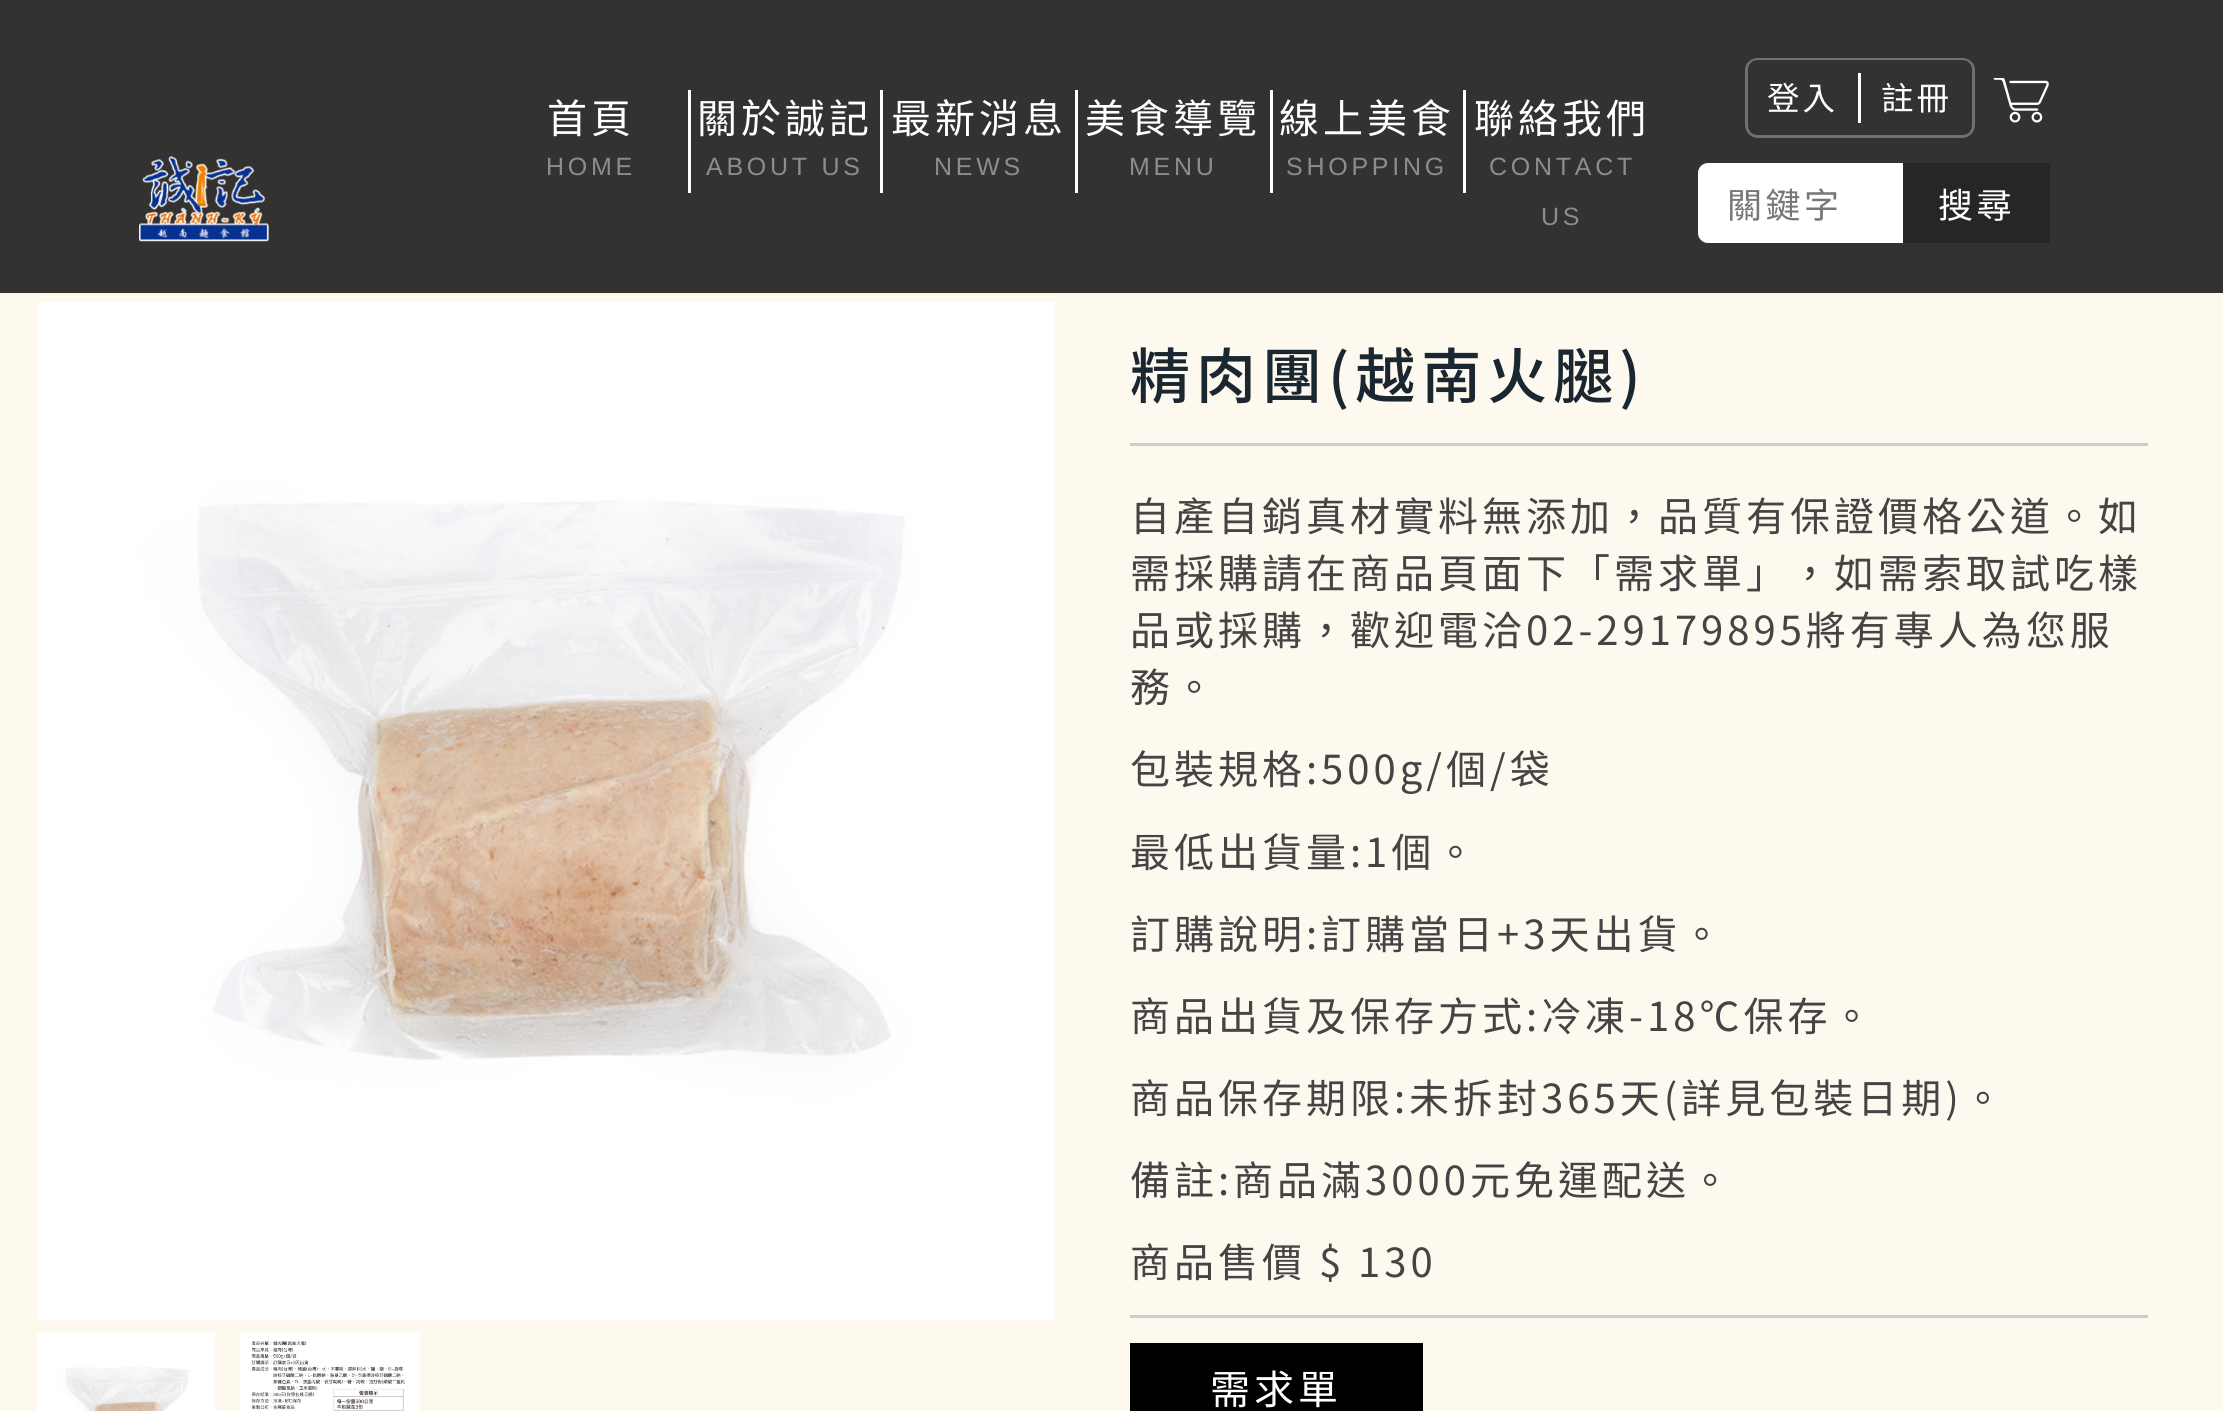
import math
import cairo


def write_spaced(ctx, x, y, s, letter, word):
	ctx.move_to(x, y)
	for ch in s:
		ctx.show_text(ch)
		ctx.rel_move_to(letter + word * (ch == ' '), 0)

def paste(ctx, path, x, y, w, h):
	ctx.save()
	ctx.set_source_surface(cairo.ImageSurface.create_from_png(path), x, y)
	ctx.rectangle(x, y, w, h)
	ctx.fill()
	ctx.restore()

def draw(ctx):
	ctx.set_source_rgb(0.996, 0.973, 0.937)
	ctx.paint()
	ctx.set_source_rgb(0.2, 0.196, 0.188)
	ctx.rectangle(0, 0, 2223, 293)
	ctx.fill()
	paste(ctx, 'media/1.png', 139, 156, 130, 86)
	ctx.set_source_rgb(1, 1, 1)
	ctx.rectangle(688, 90, 3, 103)
	ctx.fill()
	ctx.select_font_face('Noto Sans TC')
	ctx.set_font_size(40)
	write_spaced(ctx, 547, 133, '首頁', 4, 0)
	ctx.select_font_face('Liberation Sans')
	ctx.set_font_size(25)
	ctx.set_source_rgb(0.553, 0.549, 0.545)
	write_spaced(ctx, 546, 175, 'HOME', 3.75, 0)
	ctx.set_source_rgb(1, 1, 1)
	ctx.rectangle(880, 90, 3, 103)
	ctx.fill()
	ctx.select_font_face('Noto Sans TC')
	ctx.set_font_size(40)
	write_spaced(ctx, 697, 133, '關於誠記', 4, 0)
	ctx.select_font_face('Liberation Sans')
	ctx.set_font_size(25)
	ctx.set_source_rgb(0.553, 0.549, 0.545)
	write_spaced(ctx, 706, 175, 'ABOUT US', 3.75, 0)
	ctx.set_source_rgb(1, 1, 1)
	ctx.rectangle(1075, 90, 3, 103)
	ctx.fill()
	ctx.select_font_face('Noto Sans TC')
	ctx.set_font_size(40)
	write_spaced(ctx, 891, 133, '最新消息', 4, 0)
	ctx.select_font_face('Liberation Sans')
	ctx.set_font_size(25)
	ctx.set_source_rgb(0.553, 0.549, 0.545)
	write_spaced(ctx, 934, 175, 'NEWS', 3.75, 0)
	ctx.set_source_rgb(1, 1, 1)
	ctx.rectangle(1270, 90, 3, 103)
	ctx.fill()
	ctx.select_font_face('Noto Sans TC')
	ctx.set_font_size(40)
	write_spaced(ctx, 1085, 133, '美食導覽', 4, 0)
	ctx.select_font_face('Liberation Sans')
	ctx.set_font_size(25)
	ctx.set_source_rgb(0.553, 0.549, 0.545)
	write_spaced(ctx, 1129, 175, 'MENU', 3.75, 0)
	ctx.set_source_rgb(1, 1, 1)
	ctx.rectangle(1463, 90, 3, 103)
	ctx.fill()
	ctx.select_font_face('Noto Sans TC')
	ctx.set_font_size(40)
	write_spaced(ctx, 1279, 133, '線上美食', 4, 0)
	ctx.select_font_face('Liberation Sans')
	ctx.set_font_size(25)
	ctx.set_source_rgb(0.553, 0.549, 0.545)
	write_spaced(ctx, 1286, 175, 'SHOPPING', 3.75, 0)
	ctx.select_font_face('Noto Sans TC')
	ctx.set_font_size(40)
	ctx.set_source_rgb(1, 1, 1)
	write_spaced(ctx, 1474, 133, '聯絡我們', 4, 0)
	ctx.select_font_face('Liberation Sans')
	ctx.set_font_size(25)
	ctx.set_source_rgb(0.553, 0.549, 0.545)
	write_spaced(ctx, 1489, 175, 'CONTACT', 3.75, 0)
	write_spaced(ctx, 1541, 225, 'US', 3.75, 0)
	ctx.set_source_rgb(0.439, 0.439, 0.431)
	ctx.set_fill_rule(cairo.FILL_RULE_EVEN_ODD)
	ctx.new_path()
	ctx.move_to(1758, 58)
	ctx.line_to(1860, 58)
	ctx.line_to(1860, 138)
	ctx.line_to(1758, 138)
	ctx.curve_to(1751, 138, 1745, 132, 1745, 125)
	ctx.line_to(1745, 70)
	ctx.curve_to(1745, 63, 1751, 58, 1758, 58)
	ctx.close_path()
	ctx.move_to(1758, 60)
	ctx.line_to(1860, 60)
	ctx.line_to(1860, 135)
	ctx.line_to(1758, 135)
	ctx.curve_to(1752, 135, 1748, 131, 1748, 125)
	ctx.line_to(1748, 70)
	ctx.curve_to(1748, 64, 1752, 60, 1758, 60)
	ctx.close_path()
	ctx.fill()
	ctx.set_source_rgb(1, 1, 1)
	ctx.rectangle(1858, 73, 3, 50)
	ctx.fill()
	ctx.select_font_face('Noto Sans TC')
	ctx.set_font_size(32.5)
	write_spaced(ctx, 1767, 110, '登入', 3, 0)
	ctx.set_source_rgb(0.439, 0.439, 0.431)
	ctx.new_path()
	ctx.move_to(1860, 58)
	ctx.line_to(1962, 58)
	ctx.curve_to(1969, 58, 1975, 63, 1975, 70)
	ctx.line_to(1975, 125)
	ctx.curve_to(1975, 132, 1969, 138, 1962, 138)
	ctx.line_to(1860, 138)
	ctx.close_path()
	ctx.move_to(1860, 60)
	ctx.line_to(1962, 60)
	ctx.curve_to(1968, 60, 1972, 64, 1972, 70)
	ctx.line_to(1972, 125)
	ctx.curve_to(1972, 131, 1968, 135, 1962, 135)
	ctx.line_to(1860, 135)
	ctx.close_path()
	ctx.fill()
	ctx.set_source_rgb(1, 1, 1)
	write_spaced(ctx, 1881, 110, '註冊', 3, 0)
	paste(ctx, 'media/2.png', 1993, 78, 56, 45)
	ctx.new_path()
	ctx.move_to(1708, 163)
	ctx.line_to(1905, 163)
	ctx.line_to(1905, 243)
	ctx.line_to(1708, 243)
	ctx.curve_to(1702.5, 243, 1698, 238.5, 1698, 233)
	ctx.line_to(1698, 173)
	ctx.curve_to(1698, 167.5, 1702.5, 163, 1708, 163)
	ctx.close_path()
	ctx.fill()
	ctx.set_font_size(35)
	ctx.set_source_rgb(0.467, 0.467, 0.467)
	write_spaced(ctx, 1727, 218, '關鍵字', 3.5, 0)
	ctx.set_source_rgb(0.149, 0.149, 0.149)
	ctx.rectangle(1903, 163, 147, 80)
	ctx.fill()
	ctx.set_source_rgb(1, 1, 1)
	write_spaced(ctx, 1938, 218, '搜尋', 3.5, 0)
	paste(ctx, 'media/3.png', 38, 302, 1017, 1018)
	paste(ctx, 'media/4.png', 37, 1332, 178, 79)
	paste(ctx, 'media/5.png', 240, 1332, 180, 79)
	ctx.set_source_rgb(0.8, 0.8, 0.8)
	ctx.rectangle(1130, 443, 1018, 3)
	ctx.fill()
	ctx.select_font_face('Noto Sans TC Medium')
	ctx.set_font_size(60)
	ctx.set_source_rgb(0.102, 0.153, 0.192)
	write_spaced(ctx, 1130, 398, '精肉團(越南火腿)', 6, 0)
	ctx.select_font_face('Noto Sans TC')
	ctx.set_font_size(40)
	ctx.set_source_rgb(0.267, 0.267, 0.267)
	for x, y, s in [
		(1130, 531, '自產自銷真材實料無添加，品質有保證價格公道。如'),
		(1130, 588, '需採購請在商品頁面下「需求單」，如需索取試吃樣'),
		(1130, 645, '品或採購，歡迎電洽02-29179895將有專人為您服'),
		(1130, 702, '務。'),
		(1130, 784, '包裝規格:500g/個/袋'),
		(1130, 867, '最低出貨量:1個。'),
		(1130, 949, '訂購說明:訂購當日+3天出貨。'),
		(1130, 1031, '商品出貨及保存方式:冷凍-18℃保存。'),
		(1130, 1113, '商品保存期限:未拆封365天(詳見包裝日期)。'),
		(1130, 1195, '備註:商品滿3000元免運配送。'),
		(1130, 1277, '商品售價 $ 130'),
	]:
		write_spaced(ctx, x, y, s, 4, 0)
	ctx.set_source_rgb(0.8, 0.8, 0.8)
	ctx.rectangle(1130, 1315, 1018, 3)
	ctx.fill()
	ctx.set_source_rgb(0, 0, 0)
	ctx.rectangle(1130, 1343, 293, 68)
	ctx.fill()
	ctx.set_source_rgb(1, 1, 1)
	write_spaced(ctx, 1210, 1404, '需求單', 4, 0)


surface = cairo.ImageSurface(cairo.FORMAT_RGB24, 2223, 1411)
ctx = cairo.Context(surface)
options = cairo.FontOptions()
options.set_hint_metrics(cairo.HINT_METRICS_OFF)
options.set_hint_style(cairo.HINT_STYLE_NONE)
ctx.set_font_options(options)
ctx.set_miter_limit(4)
draw(ctx)
surface.write_to_png('image.png')
